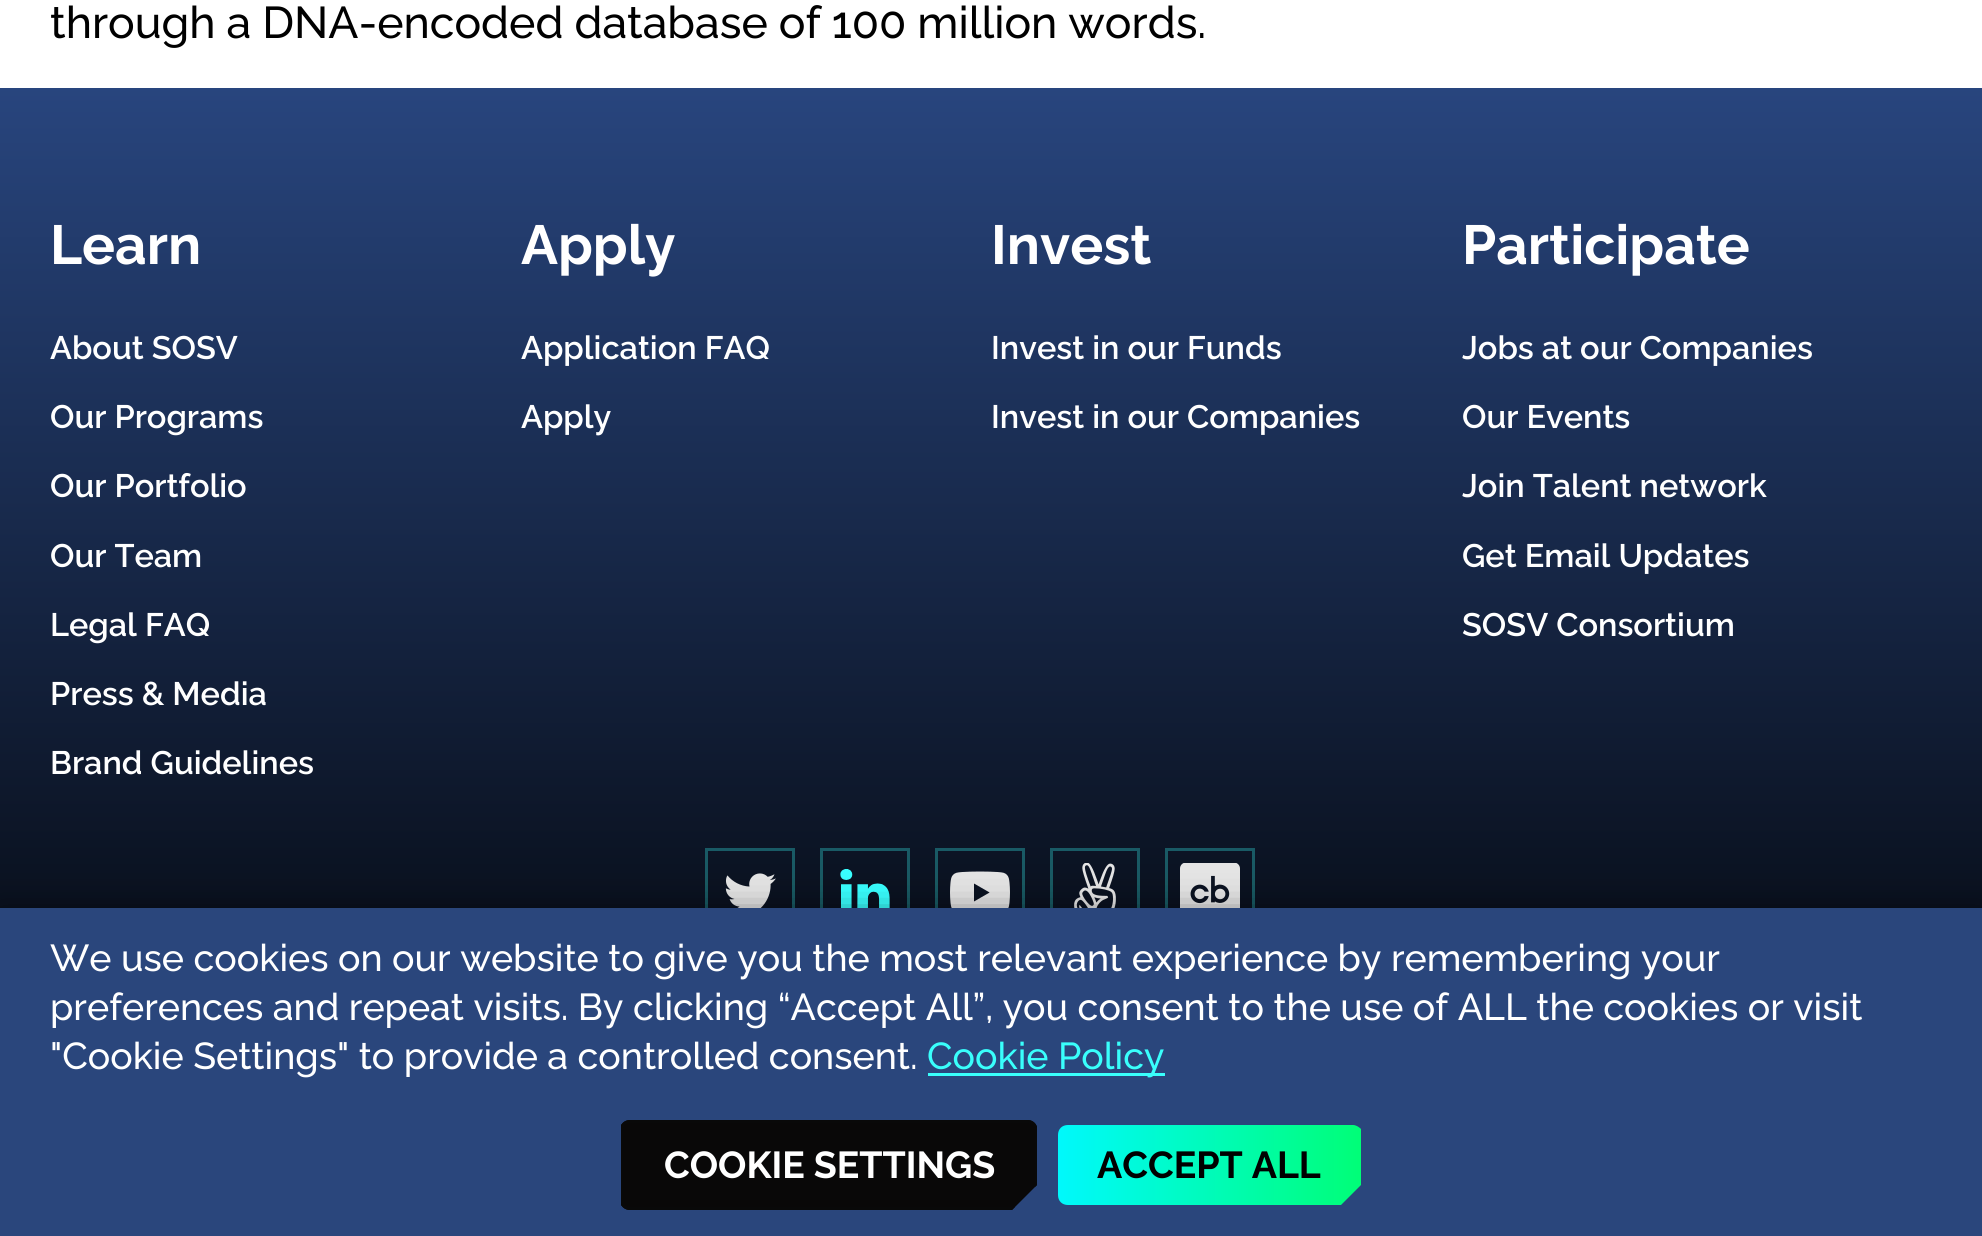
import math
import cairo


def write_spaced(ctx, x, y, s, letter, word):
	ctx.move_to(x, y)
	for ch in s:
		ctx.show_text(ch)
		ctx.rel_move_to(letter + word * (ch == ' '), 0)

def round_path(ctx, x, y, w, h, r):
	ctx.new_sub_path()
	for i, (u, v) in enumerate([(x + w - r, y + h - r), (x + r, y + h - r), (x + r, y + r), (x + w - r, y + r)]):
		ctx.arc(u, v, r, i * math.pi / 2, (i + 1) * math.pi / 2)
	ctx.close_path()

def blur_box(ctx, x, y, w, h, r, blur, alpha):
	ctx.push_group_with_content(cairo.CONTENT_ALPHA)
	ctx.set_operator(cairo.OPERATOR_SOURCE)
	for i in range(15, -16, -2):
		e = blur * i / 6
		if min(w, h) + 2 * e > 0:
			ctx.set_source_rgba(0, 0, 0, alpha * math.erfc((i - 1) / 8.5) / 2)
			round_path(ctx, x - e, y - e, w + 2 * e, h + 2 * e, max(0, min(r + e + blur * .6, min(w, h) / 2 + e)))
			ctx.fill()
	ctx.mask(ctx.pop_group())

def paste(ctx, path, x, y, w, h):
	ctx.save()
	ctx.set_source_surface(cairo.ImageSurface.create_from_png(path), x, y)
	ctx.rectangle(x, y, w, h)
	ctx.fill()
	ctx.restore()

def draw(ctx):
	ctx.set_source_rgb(1, 1, 1)
	ctx.paint()
	ctx.select_font_face('Raleway Medium')
	ctx.set_font_size(44.5)
	ctx.set_source_rgb(0, 0, 0)
	write_spaced(ctx, 50, 38, 'through a DNA-encoded database of 100 million words.', 0, -0.25)
	gradient = cairo.LinearGradient(991, 87, 991, 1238)
	gradient.add_color_stop_rgba(0, 0.157, 0.271, 0.494, 1)
	gradient.add_color_stop_rgba(0.94, 0, 0, 0, 1)
	ctx.set_source(gradient)
	ctx.rectangle(0, 88, 1982, 820)
	ctx.fill()
	ctx.select_font_face('Raleway', cairo.FONT_SLANT_NORMAL, cairo.FONT_WEIGHT_BOLD)
	ctx.set_font_size(55)
	ctx.set_source_rgb(1, 1, 1)
	ctx.move_to(50, 264)
	ctx.show_text('Learn')
	ctx.select_font_face('Raleway SemiBold')
	ctx.set_font_size(32.5)
	for x, y, s in [
		(50, 359, 'About SOSV'),
		(50, 428, 'Our Programs'),
		(50, 497, 'Our Portfolio'),
		(50, 567, 'Our Team'),
		(50, 636, 'Legal FAQ'),
		(50, 705, 'Press & Media'),
		(50, 774, 'Brand Guidelines'),
	]:
		ctx.move_to(x, y)
		ctx.show_text(s)
	ctx.select_font_face('Raleway', cairo.FONT_SLANT_NORMAL, cairo.FONT_WEIGHT_BOLD)
	ctx.set_font_size(55)
	ctx.move_to(521, 264)
	ctx.show_text('Apply')
	ctx.select_font_face('Raleway SemiBold')
	ctx.set_font_size(32.5)
	ctx.move_to(521, 359)
	ctx.show_text('Application FAQ')
	ctx.move_to(521, 428)
	ctx.show_text('Apply')
	ctx.select_font_face('Raleway', cairo.FONT_SLANT_NORMAL, cairo.FONT_WEIGHT_BOLD)
	ctx.set_font_size(55)
	ctx.move_to(991, 264)
	ctx.show_text('Invest')
	ctx.select_font_face('Raleway SemiBold')
	ctx.set_font_size(32.5)
	ctx.move_to(991, 359)
	ctx.show_text('Invest in our Funds')
	ctx.move_to(991, 428)
	ctx.show_text('Invest in our Companies')
	ctx.select_font_face('Raleway', cairo.FONT_SLANT_NORMAL, cairo.FONT_WEIGHT_BOLD)
	ctx.set_font_size(55)
	ctx.move_to(1462, 264)
	ctx.show_text('Participate')
	ctx.select_font_face('Raleway SemiBold')
	ctx.set_font_size(32.5)
	for x, y, s in [
		(1462, 359, 'Jobs at our Companies'),
		(1462, 428, 'Our Events'),
		(1462, 497, 'Join Talent network'),
		(1462, 567, 'Get Email Updates'),
		(1462, 636, 'SOSV Consortium'),
	]:
		ctx.move_to(x, y)
		ctx.show_text(s)
	ctx.rectangle(706.5, 849.5, 87, 87)
	ctx.set_source_rgba(0.224, 1, 0.988, 0.3)
	ctx.set_line_width(3)
	ctx.stroke()
	paste(ctx, 'media/1.png', 725, 873, 51, 35)
	ctx.rectangle(821.5, 849.5, 87, 87)
	ctx.stroke()
	paste(ctx, 'media/2.png', 840, 869, 50, 39)
	ctx.rectangle(936.5, 849.5, 87, 87)
	ctx.stroke()
	paste(ctx, 'media/3.png', 950, 871, 60, 37)
	ctx.rectangle(1051.5, 849.5, 87, 87)
	ctx.stroke()
	paste(ctx, 'media/4.png', 1074, 863, 42, 45)
	ctx.rectangle(1166.5, 849.5, 87, 87)
	ctx.stroke()
	paste(ctx, 'media/5.png', 1180, 863, 60, 45)
	ctx.set_source_rgb(0, 0, 0)
	blur_box(ctx, 0, 920, 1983, 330, 0, 19, 0.7)
	ctx.set_source_rgb(0.165, 0.275, 0.486)
	ctx.rectangle(0, 908, 1982, 328)
	ctx.fill()
	ctx.select_font_face('Raleway Medium')
	ctx.set_font_size(37.5)
	ctx.set_source_rgb(1, 1, 1)
	for x, y, s in [
		(50, 971, 'We use cookies on our website to give you the most relevant experience by remembering your'),
		(50, 1020, 'preferences and repeat visits. By clicking “Accept All”, you consent to the use of ALL the cookies or visit'),
		(50, 1069, '"Cookie Settings" to provide a controlled consent.'),
	]:
		ctx.move_to(x, y)
		ctx.show_text(s)
	ctx.set_source_rgb(0.224, 1, 0.988)
	ctx.rectangle(928, 1073, 237, 3)
	ctx.fill()
	ctx.move_to(927, 1069)
	ctx.show_text('Cookie Policy')
	ctx.set_source_rgb(0.039, 0.035, 0.035)
	ctx.new_path()
	ctx.move_to(630, 1120)
	ctx.curve_to(626, 1120, 623, 1122, 621, 1125)
	ctx.line_to(621, 1205)
	ctx.curve_to(623, 1208, 626, 1210, 630, 1210)
	ctx.line_to(1012, 1210)
	ctx.line_to(1037, 1185)
	ctx.line_to(1037, 1127)
	ctx.curve_to(1036, 1123, 1032, 1120, 1028, 1120)
	ctx.close_path()
	ctx.fill()
	ctx.set_source_rgb(0.039, 0.039, 0.039)
	ctx.new_path()
	ctx.move_to(630, 1120)
	ctx.curve_to(626, 1120, 623, 1122, 621, 1125)
	ctx.line_to(621, 1205)
	ctx.curve_to(623, 1208, 626, 1210, 630, 1210)
	ctx.line_to(1012, 1210)
	ctx.line_to(1015, 1207)
	ctx.line_to(630, 1207)
	ctx.curve_to(626, 1207, 623, 1204, 623, 1200)
	ctx.line_to(623, 1130)
	ctx.curve_to(623, 1126, 626, 1123, 630, 1123)
	ctx.line_to(1028, 1123)
	ctx.curve_to(1032, 1123, 1035, 1126, 1035, 1130)
	ctx.line_to(1035, 1187)
	ctx.line_to(1037, 1185)
	ctx.line_to(1037, 1127)
	ctx.curve_to(1036, 1123, 1032, 1120, 1028, 1120)
	ctx.close_path()
	ctx.fill()
	ctx.select_font_face('Raleway', cairo.FONT_SLANT_NORMAL, cairo.FONT_WEIGHT_BOLD)
	ctx.set_source_rgb(1, 1, 1)
	ctx.move_to(664, 1178)
	ctx.show_text('COOKIE SETTINGS')
	gradient = cairo.LinearGradient(1058, 1165, 1363, 1165)
	gradient.add_color_stop_rgba(0, 0, 0.976, 0.988, 1)
	gradient.add_color_stop_rgba(1, 0, 0.996, 0.463, 1)
	ctx.set_source(gradient)
	ctx.new_path()
	ctx.move_to(1068, 1125)
	ctx.curve_to(1062, 1125, 1058, 1129, 1058, 1135)
	ctx.line_to(1058, 1195)
	ctx.curve_to(1058, 1201, 1062, 1205, 1068, 1205)
	ctx.line_to(1341, 1205)
	ctx.line_to(1361, 1185)
	ctx.line_to(1361, 1129)
	ctx.curve_to(1359, 1127, 1356, 1125, 1353, 1125)
	ctx.close_path()
	ctx.fill()
	ctx.set_source_rgb(0, 0, 0)
	ctx.move_to(1097, 1178)
	ctx.show_text('ACCEPT ALL')


surface = cairo.ImageSurface(cairo.FORMAT_RGB24, 1982, 1236)
ctx = cairo.Context(surface)
options = cairo.FontOptions()
options.set_hint_metrics(cairo.HINT_METRICS_OFF)
options.set_hint_style(cairo.HINT_STYLE_NONE)
ctx.set_font_options(options)
ctx.set_miter_limit(4)
draw(ctx)
surface.write_to_png('image.png')
